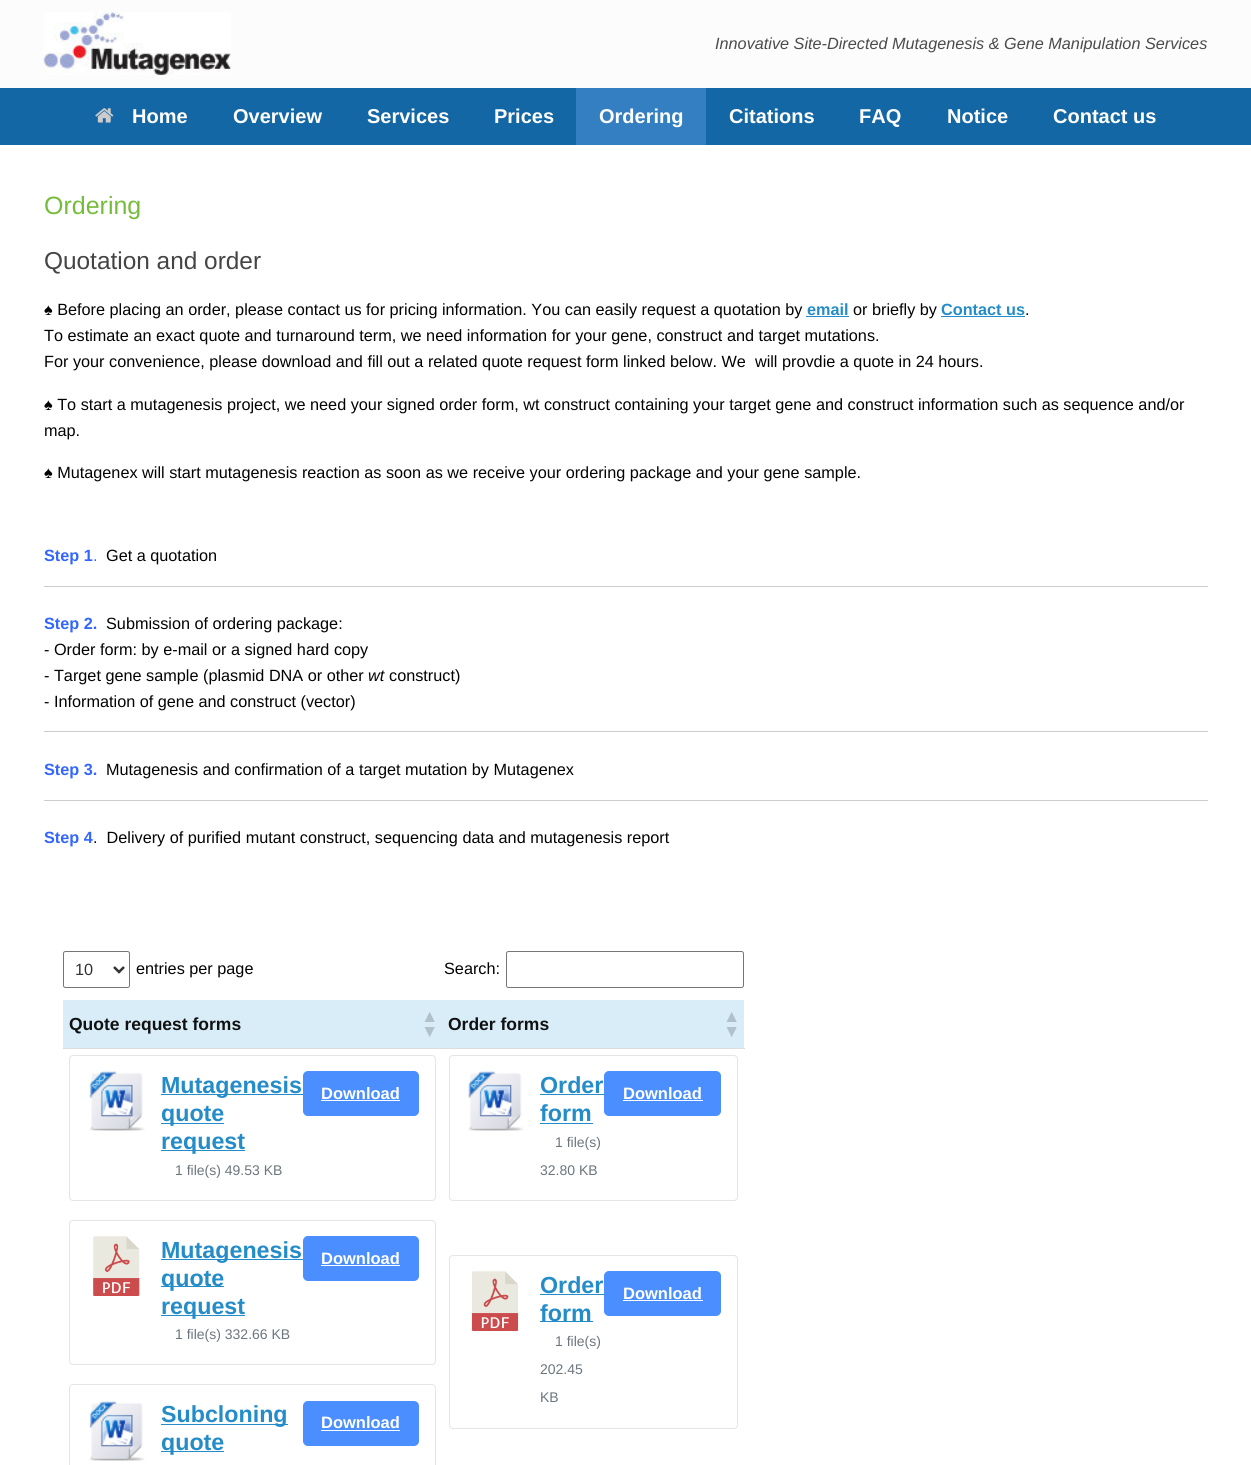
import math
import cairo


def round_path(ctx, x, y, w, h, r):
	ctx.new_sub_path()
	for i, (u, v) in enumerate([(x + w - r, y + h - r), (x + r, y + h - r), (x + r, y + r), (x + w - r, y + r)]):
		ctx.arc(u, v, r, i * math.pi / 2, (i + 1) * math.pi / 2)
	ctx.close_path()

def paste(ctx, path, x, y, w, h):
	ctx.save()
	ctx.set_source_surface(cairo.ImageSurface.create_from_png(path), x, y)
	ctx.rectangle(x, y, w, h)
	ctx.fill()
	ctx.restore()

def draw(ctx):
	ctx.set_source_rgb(0.988, 0.988, 0.988)
	ctx.paint()
	paste(ctx, 'media/1.png', 43, 12, 188, 63)
	ctx.select_font_face('Liberation Sans', cairo.FONT_SLANT_ITALIC)
	ctx.set_font_size(16.25)
	ctx.set_source_rgb(0.294, 0.294, 0.294)
	ctx.move_to(715, 49)
	ctx.show_text('Innovative Site-Directed Mutagenesis & Gene Manipulation Services')
	ctx.set_source_rgb(0.082, 0.404, 0.647)
	ctx.rectangle(0, 88, 1251, 57)
	ctx.fill()
	paste(ctx, 'media/2.png', 95, 108, 19, 15)
	ctx.select_font_face('Liberation Sans', cairo.FONT_SLANT_NORMAL, cairo.FONT_WEIGHT_BOLD)
	ctx.set_font_size(20)
	ctx.set_source_rgb(1, 1, 1)
	for x, y, s in [
		(132, 123, 'Home'),
		(233, 123, 'Overview'),
		(367, 123, 'Services'),
		(494, 123, 'Prices'),
	]:
		ctx.move_to(x, y)
		ctx.show_text(s)
	ctx.set_source_rgb(0.204, 0.498, 0.757)
	ctx.rectangle(576, 88, 130, 57)
	ctx.fill()
	ctx.set_source_rgb(1, 1, 1)
	for x, y, s in [
		(599, 123, 'Ordering'),
		(729, 123, 'Citations'),
		(859, 123, 'FAQ'),
		(947, 123, 'Notice'),
		(1053, 123, 'Contact us'),
	]:
		ctx.move_to(x, y)
		ctx.show_text(s)
	ctx.rectangle(0, 145, 1251, 1320)
	ctx.fill()
	ctx.select_font_face('Liberation Sans')
	ctx.set_font_size(25)
	ctx.set_source_rgb(0.459, 0.737, 0.227)
	ctx.move_to(44, 214)
	ctx.show_text('Ordering')
	ctx.set_font_size(24.4)
	ctx.set_source_rgb(0.267, 0.267, 0.267)
	ctx.move_to(44, 269)
	ctx.show_text('Quotation and order')
	ctx.set_font_size(16.25)
	ctx.set_source_rgb(0.008, 0.008, 0.008)
	ctx.move_to(44, 315)
	ctx.show_text('♠ Before placing an order, please contact us for pricing information. You can easily request a quotation by')
	ctx.select_font_face('Liberation Sans', cairo.FONT_SLANT_NORMAL, cairo.FONT_WEIGHT_BOLD)
	ctx.set_source_rgb(0.141, 0.549, 0.784)
	ctx.move_to(807, 315)
	ctx.show_text('email')
	ctx.rectangle(806, 316, 43, 1)
	ctx.fill()
	ctx.select_font_face('Liberation Sans')
	ctx.set_source_rgb(0.008, 0.008, 0.008)
	ctx.move_to(853, 315)
	ctx.show_text('or briefly by')
	ctx.select_font_face('Liberation Sans', cairo.FONT_SLANT_NORMAL, cairo.FONT_WEIGHT_BOLD)
	ctx.set_source_rgb(0.141, 0.549, 0.784)
	ctx.move_to(941, 315)
	ctx.show_text('Contact us')
	ctx.rectangle(941, 316, 84, 1)
	ctx.fill()
	ctx.select_font_face('Liberation Sans')
	ctx.set_source_rgb(0.008, 0.008, 0.008)
	for x, y, s in [
		(1025, 315, '.'),
		(44, 341, 'To estimate an exact quote and turnaround term, we need information for your gene, construct and target mutations.'),
		(44, 367, 'For your convenience, please download and fill out a related quote request form linked below. We  will provdie a quote in 24 hours.'),
		(44, 410, '♠ To start a mutagenesis project, we need your signed order form, wt construct containing your target gene and construct information such as sequence and/or'),
		(44, 436, 'map.'),
		(44, 478, '♠ Mutagenex will start mutagenesis reaction as soon as we receive your ordering package and your gene sample.'),
	]:
		ctx.move_to(x, y)
		ctx.show_text(s)
	ctx.select_font_face('Liberation Sans', cairo.FONT_SLANT_NORMAL, cairo.FONT_WEIGHT_BOLD)
	ctx.set_source_rgb(0.2, 0.4, 1)
	ctx.move_to(44, 561)
	ctx.show_text('Step 1')
	ctx.select_font_face('Liberation Sans')
	ctx.move_to(93, 561)
	ctx.show_text('.')
	ctx.set_source_rgb(0.008, 0.008, 0.008)
	ctx.move_to(106, 561)
	ctx.show_text('Get a quotation')
	ctx.set_source_rgb(0.8, 0.8, 0.8)
	ctx.rectangle(44, 586, 1164, 1)
	ctx.fill()
	ctx.select_font_face('Liberation Sans', cairo.FONT_SLANT_NORMAL, cairo.FONT_WEIGHT_BOLD)
	ctx.set_source_rgb(0.2, 0.4, 1)
	ctx.move_to(44, 629)
	ctx.show_text('Step 2.')
	ctx.select_font_face('Liberation Sans')
	ctx.set_source_rgb(0.008, 0.008, 0.008)
	for x, y, s in [
		(106, 629, 'Submission of ordering package:'),
		(44, 655, '- Order form: by e-mail or a signed hard copy'),
		(44, 681, '- Target gene sample (plasmid DNA or other'),
	]:
		ctx.move_to(x, y)
		ctx.show_text(s)
	ctx.select_font_face('Liberation Sans', cairo.FONT_SLANT_ITALIC)
	ctx.move_to(368, 681)
	ctx.show_text('wt')
	ctx.select_font_face('Liberation Sans')
	ctx.move_to(389, 681)
	ctx.show_text('construct)')
	ctx.move_to(44, 707)
	ctx.show_text('- Information of gene and construct (vector)')
	ctx.set_source_rgb(0.8, 0.8, 0.8)
	ctx.rectangle(44, 731, 1164, 1)
	ctx.fill()
	ctx.select_font_face('Liberation Sans', cairo.FONT_SLANT_NORMAL, cairo.FONT_WEIGHT_BOLD)
	ctx.set_source_rgb(0.2, 0.4, 1)
	ctx.move_to(44, 775)
	ctx.show_text('Step 3.')
	ctx.select_font_face('Liberation Sans')
	ctx.set_source_rgb(0.008, 0.008, 0.008)
	ctx.move_to(106, 775)
	ctx.show_text('Mutagenesis and confirmation of a target mutation by Mutagenex')
	ctx.set_source_rgb(0.8, 0.8, 0.8)
	ctx.rectangle(44, 800, 1164, 1)
	ctx.fill()
	ctx.select_font_face('Liberation Sans', cairo.FONT_SLANT_NORMAL, cairo.FONT_WEIGHT_BOLD)
	ctx.set_source_rgb(0.2, 0.4, 1)
	ctx.move_to(44, 843)
	ctx.show_text('Step 4')
	ctx.select_font_face('Liberation Sans')
	ctx.set_source_rgb(0.008, 0.008, 0.008)
	ctx.move_to(93, 843)
	ctx.show_text('.  Delivery of purified mutant construct, sequencing data and mutagenesis report')
	round_path(ctx, 63.5, 951.5, 66, 36, 2)
	ctx.set_source_rgb(0.463, 0.463, 0.463)
	ctx.set_line_width(1)
	ctx.stroke()
	ctx.new_path()
	ctx.move_to(114, 967)
	ctx.line_to(119, 972)
	ctx.line_to(124, 967)
	ctx.set_source_rgb(0.2, 0.2, 0.2)
	ctx.set_line_width(2.5)
	ctx.stroke()
	ctx.move_to(75, 975)
	ctx.show_text('10')
	ctx.set_source_rgb(0.008, 0.008, 0.008)
	ctx.move_to(136, 974)
	ctx.show_text('entries per page')
	ctx.move_to(444, 974)
	ctx.show_text('Search:')
	round_path(ctx, 506.5, 951.5, 237, 36, 2)
	ctx.set_source_rgb(0.463, 0.463, 0.463)
	ctx.set_line_width(1)
	ctx.stroke()
	ctx.set_source_rgb(0.851, 0.929, 0.969)
	ctx.rectangle(63, 1000, 681, 48)
	ctx.fill()
	ctx.select_font_face('Liberation Sans', cairo.FONT_SLANT_NORMAL, cairo.FONT_WEIGHT_BOLD)
	ctx.set_font_size(17.5)
	ctx.set_source_rgb(0.067, 0.067, 0.067)
	ctx.move_to(69, 1030)
	ctx.show_text('Quote request forms')
	ctx.set_source_rgb(0.694, 0.757, 0.788)
	ctx.move_to(421, 1022)
	ctx.show_text('▲')
	ctx.move_to(421, 1037)
	ctx.show_text('▼')
	ctx.set_source_rgb(0.067, 0.067, 0.067)
	ctx.move_to(448, 1030)
	ctx.show_text('Order forms')
	ctx.set_source_rgb(0.694, 0.757, 0.788)
	ctx.move_to(723, 1022)
	ctx.show_text('▲')
	ctx.move_to(723, 1037)
	ctx.show_text('▼')
	round_path(ctx, 69.5, 1055.5, 366, 145, 3.5)
	ctx.set_source_rgb(0.898, 0.898, 0.898)
	ctx.stroke()
	paste(ctx, 'media/3.png', 89, 1071, 56, 60)
	ctx.set_source_rgb(0.141, 0.549, 0.784)
	ctx.rectangle(161, 1094, 142, 1)
	ctx.fill()
	ctx.set_font_size(23.25)
	ctx.move_to(161, 1093)
	ctx.show_text('Mutagenesis')
	ctx.rectangle(161, 1123, 63, 1)
	ctx.fill()
	ctx.move_to(161, 1121)
	ctx.show_text('quote')
	ctx.rectangle(161, 1150, 84, 1)
	ctx.fill()
	ctx.move_to(161, 1149)
	ctx.show_text('request')
	ctx.select_font_face('Liberation Sans')
	ctx.set_font_size(14)
	ctx.set_source_rgb(0.424, 0.459, 0.49)
	ctx.move_to(175, 1175)
	ctx.show_text('1 file(s) 49.53 KB')
	ctx.set_source_rgb(0.29, 0.557, 1)
	round_path(ctx, 303, 1071, 116, 45, 5)
	ctx.fill()
	ctx.select_font_face('Liberation Sans', cairo.FONT_SLANT_NORMAL, cairo.FONT_WEIGHT_BOLD)
	ctx.set_font_size(16.5)
	ctx.set_source_rgb(1, 1, 1)
	ctx.move_to(321, 1099)
	ctx.show_text('Download')
	ctx.rectangle(321, 1100, 79, 1)
	ctx.fill()
	round_path(ctx, 69.5, 1220.5, 366, 144, 3.5)
	ctx.set_source_rgb(0.898, 0.898, 0.898)
	ctx.stroke()
	paste(ctx, 'media/4.png', 93, 1236, 47, 60)
	ctx.set_source_rgb(0.141, 0.549, 0.784)
	ctx.rectangle(161, 1259, 142, 1)
	ctx.fill()
	ctx.set_font_size(23.25)
	ctx.move_to(161, 1258)
	ctx.show_text('Mutagenesis')
	ctx.rectangle(161, 1286, 63, 1)
	ctx.fill()
	ctx.move_to(161, 1286)
	ctx.show_text('quote')
	ctx.rectangle(161, 1315, 84, 1)
	ctx.fill()
	ctx.move_to(161, 1314)
	ctx.show_text('request')
	ctx.select_font_face('Liberation Sans')
	ctx.set_font_size(14)
	ctx.set_source_rgb(0.424, 0.459, 0.49)
	ctx.move_to(175, 1339)
	ctx.show_text('1 file(s) 332.66 KB')
	ctx.set_source_rgb(0.29, 0.557, 1)
	round_path(ctx, 303, 1236, 116, 45, 5)
	ctx.fill()
	ctx.select_font_face('Liberation Sans', cairo.FONT_SLANT_NORMAL, cairo.FONT_WEIGHT_BOLD)
	ctx.set_font_size(16.5)
	ctx.set_source_rgb(1, 1, 1)
	ctx.move_to(321, 1264)
	ctx.show_text('Download')
	ctx.rectangle(321, 1265, 79, 1)
	ctx.fill()
	round_path(ctx, 69.5, 1384.5, 366, 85, 3.5)
	ctx.set_source_rgb(0.898, 0.898, 0.898)
	ctx.stroke()
	paste(ctx, 'media/3.png', 89, 1401, 56, 60)
	ctx.set_source_rgb(0.141, 0.549, 0.784)
	ctx.rectangle(161, 1424, 127, 1)
	ctx.fill()
	ctx.set_font_size(23.25)
	ctx.move_to(161, 1422)
	ctx.show_text('Subcloning')
	ctx.rectangle(161, 1451, 63, 1)
	ctx.fill()
	ctx.move_to(161, 1450)
	ctx.show_text('quote')
	ctx.set_source_rgb(0.29, 0.557, 1)
	round_path(ctx, 303, 1401, 116, 45, 5)
	ctx.fill()
	ctx.set_font_size(16.5)
	ctx.set_source_rgb(1, 1, 1)
	ctx.move_to(321, 1428)
	ctx.show_text('Download')
	ctx.rectangle(321, 1430, 79, 1)
	ctx.fill()
	ctx.set_source_rgb(0.867, 0.867, 0.867)
	ctx.rectangle(63, 1048, 682, 1)
	ctx.fill()
	round_path(ctx, 449.5, 1055.5, 288, 145, 3.5)
	ctx.set_source_rgb(0.898, 0.898, 0.898)
	ctx.stroke()
	paste(ctx, 'media/5.png', 468, 1071, 56, 60)
	ctx.set_font_size(23.25)
	ctx.set_source_rgb(0.141, 0.549, 0.784)
	ctx.move_to(540, 1093)
	ctx.show_text('Order')
	ctx.rectangle(540, 1094, 64, 1)
	ctx.fill()
	ctx.move_to(540, 1121)
	ctx.show_text('form')
	ctx.rectangle(540, 1123, 53, 1)
	ctx.fill()
	ctx.select_font_face('Liberation Sans')
	ctx.set_font_size(14)
	ctx.set_source_rgb(0.424, 0.459, 0.49)
	ctx.move_to(555, 1147)
	ctx.show_text('1 file(s)')
	ctx.move_to(540, 1175)
	ctx.show_text('32.80 KB')
	ctx.set_source_rgb(0.29, 0.557, 1)
	round_path(ctx, 604, 1071, 117, 45, 5)
	ctx.fill()
	ctx.select_font_face('Liberation Sans', cairo.FONT_SLANT_NORMAL, cairo.FONT_WEIGHT_BOLD)
	ctx.set_font_size(16.5)
	ctx.set_source_rgb(1, 1, 1)
	ctx.move_to(623, 1099)
	ctx.show_text('Download')
	ctx.rectangle(623, 1100, 80, 1)
	ctx.fill()
	round_path(ctx, 449.5, 1255.5, 288, 173, 3.5)
	ctx.set_source_rgb(0.898, 0.898, 0.898)
	ctx.stroke()
	paste(ctx, 'media/6.png', 471, 1271, 48, 60)
	ctx.set_font_size(23.25)
	ctx.set_source_rgb(0.141, 0.549, 0.784)
	ctx.move_to(540, 1293)
	ctx.show_text('Order')
	ctx.rectangle(540, 1294, 64, 1)
	ctx.fill()
	ctx.rectangle(540, 1321, 53, 1)
	ctx.fill()
	ctx.move_to(540, 1321)
	ctx.show_text('form')
	ctx.select_font_face('Liberation Sans')
	ctx.set_font_size(14)
	ctx.set_source_rgb(0.424, 0.459, 0.49)
	for x, y, s in [
		(555, 1346, '1 file(s)'),
		(540, 1374, '202.45'),
		(540, 1402, 'KB'),
	]:
		ctx.move_to(x, y)
		ctx.show_text(s)
	ctx.set_source_rgb(0.29, 0.557, 1)
	round_path(ctx, 604, 1271, 117, 45, 5)
	ctx.fill()
	ctx.select_font_face('Liberation Sans', cairo.FONT_SLANT_NORMAL, cairo.FONT_WEIGHT_BOLD)
	ctx.set_font_size(16.5)
	ctx.set_source_rgb(1, 1, 1)
	ctx.move_to(623, 1299)
	ctx.show_text('Download')
	ctx.rectangle(623, 1300, 80, 1)
	ctx.fill()


surface = cairo.ImageSurface(cairo.FORMAT_RGB24, 1251, 1465)
ctx = cairo.Context(surface)
options = cairo.FontOptions()
options.set_hint_metrics(cairo.HINT_METRICS_OFF)
options.set_hint_style(cairo.HINT_STYLE_NONE)
ctx.set_font_options(options)
ctx.set_miter_limit(4)
draw(ctx)
surface.write_to_png('image.png')
